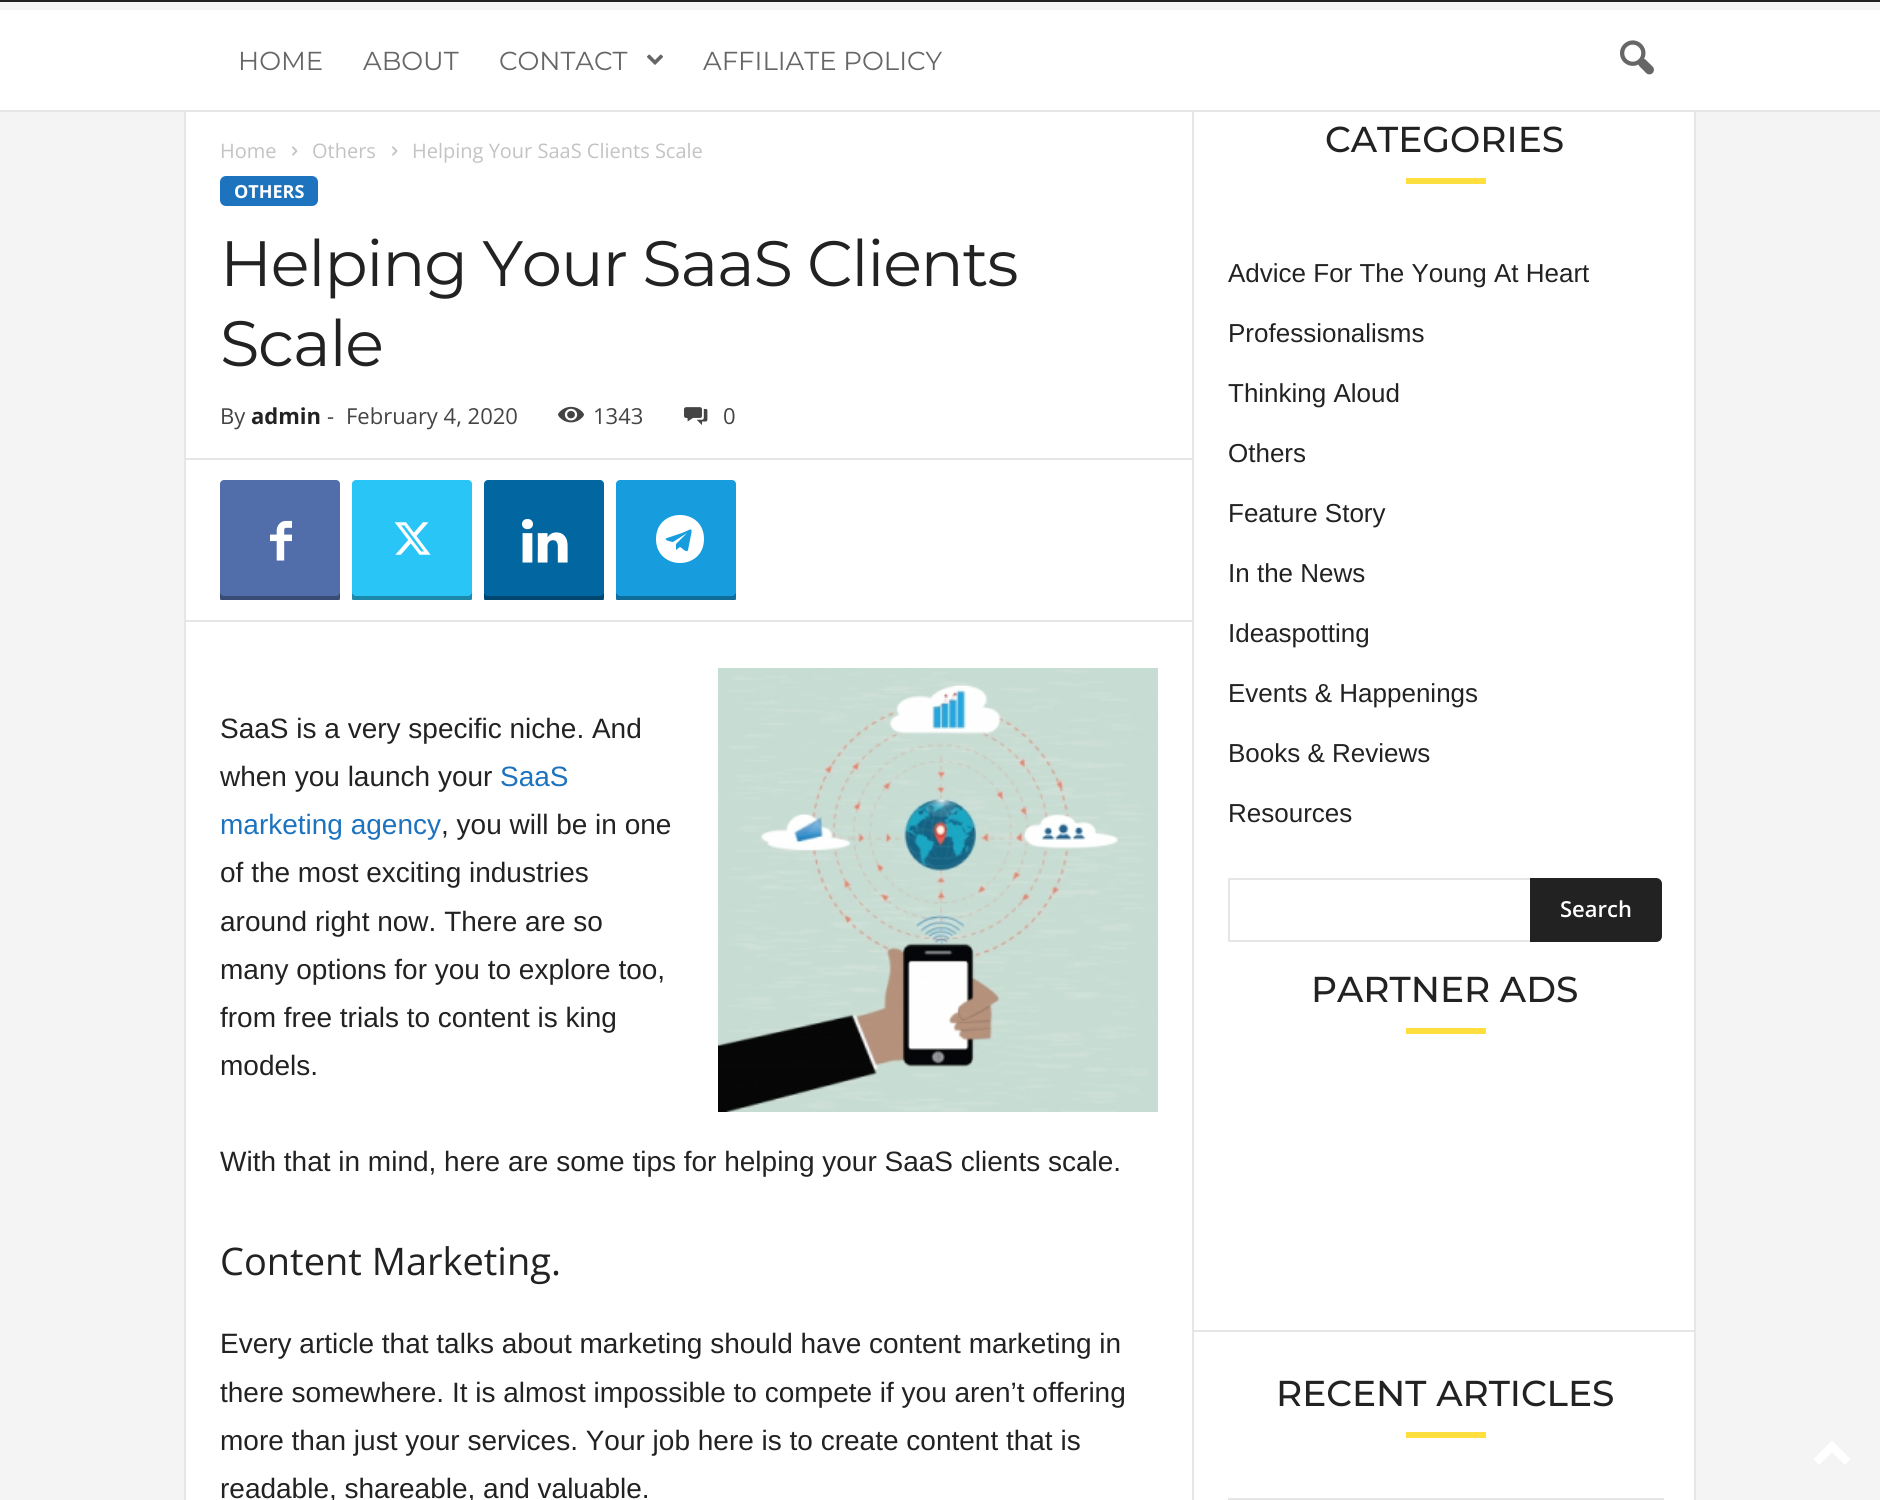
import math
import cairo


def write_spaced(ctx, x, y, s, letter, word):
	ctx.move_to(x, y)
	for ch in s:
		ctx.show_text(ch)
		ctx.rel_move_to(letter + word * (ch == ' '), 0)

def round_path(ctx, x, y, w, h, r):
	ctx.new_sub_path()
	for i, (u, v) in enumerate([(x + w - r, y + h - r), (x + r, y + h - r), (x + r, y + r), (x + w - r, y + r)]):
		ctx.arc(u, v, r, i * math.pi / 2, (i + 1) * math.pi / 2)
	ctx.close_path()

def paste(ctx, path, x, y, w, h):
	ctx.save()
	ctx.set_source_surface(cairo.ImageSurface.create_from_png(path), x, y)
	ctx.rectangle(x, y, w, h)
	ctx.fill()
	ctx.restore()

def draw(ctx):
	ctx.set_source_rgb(0.957, 0.957, 0.957)
	ctx.paint()
	ctx.set_source_rgb(0.133, 0.133, 0.133)
	ctx.rectangle(0, 0, 1880, 2)
	ctx.fill()
	ctx.set_source_rgb(1, 1, 1)
	ctx.rectangle(0, 10, 1880, 100)
	ctx.fill()
	ctx.set_source_rgb(0.902, 0.902, 0.902)
	ctx.rectangle(0, 110, 1880, 2)
	ctx.fill()
	ctx.select_font_face('Montserrat')
	ctx.set_font_size(26)
	ctx.set_source_rgb(0.4, 0.4, 0.4)
	for x, y, s in [
		(238, 70, 'HOME'),
		(363, 70, 'ABOUT'),
		(499, 70, 'CONTACT'),
	]:
		ctx.move_to(x, y)
		ctx.show_text(s)
	paste(ctx, 'media/1.png', 647, 54, 16, 11)
	ctx.move_to(703, 70)
	ctx.show_text('AFFILIATE POLICY')
	paste(ctx, 'media/2.png', 1620, 40, 34, 35)
	ctx.set_source_rgb(1, 1, 1)
	ctx.rectangle(186, 112, 1508, 1388)
	ctx.fill()
	ctx.set_source_rgb(0.902, 0.902, 0.902)
	ctx.rectangle(184, 112, 2, 1388)
	ctx.fill()
	ctx.select_font_face('Open Sans')
	ctx.set_font_size(20)
	ctx.set_source_rgb(0.765, 0.765, 0.765)
	ctx.move_to(220, 158)
	ctx.show_text('Home')
	paste(ctx, 'media/3.png', 292, 146, 6, 10)
	ctx.move_to(312, 158)
	ctx.show_text('Others')
	paste(ctx, 'media/3.png', 392, 146, 6, 10)
	ctx.move_to(412, 158)
	ctx.show_text('Helping Your SaaS Clients Scale')
	ctx.set_source_rgb(0.118, 0.451, 0.745)
	round_path(ctx, 220, 176, 98, 30, 6)
	ctx.fill()
	ctx.select_font_face('Open Sans', cairo.FONT_SLANT_NORMAL, cairo.FONT_WEIGHT_BOLD)
	ctx.set_font_size(18)
	ctx.set_source_rgb(1, 1, 1)
	ctx.move_to(234, 198)
	ctx.show_text('OTHERS')
	ctx.select_font_face('Montserrat')
	ctx.set_font_size(64)
	ctx.set_source_rgb(0.133, 0.133, 0.133)
	write_spaced(ctx, 220, 286, 'Helping Your SaaS Clients', -1.25, 0)
	write_spaced(ctx, 220, 366, 'Scale', -1.25, 0)
	ctx.select_font_face('Open Sans')
	ctx.set_font_size(22)
	ctx.set_source_rgb(0.267, 0.267, 0.267)
	ctx.move_to(220, 424)
	ctx.show_text('By')
	ctx.select_font_face('Open Sans', cairo.FONT_SLANT_NORMAL, cairo.FONT_WEIGHT_BOLD)
	ctx.set_source_rgb(0.133, 0.133, 0.133)
	ctx.move_to(251, 424)
	ctx.show_text('admin')
	ctx.select_font_face('Open Sans')
	ctx.set_source_rgb(0.267, 0.267, 0.267)
	ctx.move_to(327, 424)
	ctx.show_text('-')
	ctx.move_to(346, 424)
	ctx.show_text('February 4, 2020')
	paste(ctx, 'media/4.png', 558, 406, 26, 17)
	ctx.move_to(593, 424)
	ctx.show_text('1343')
	paste(ctx, 'media/5.png', 684, 407, 24, 18)
	ctx.move_to(723, 424)
	ctx.show_text('0')
	ctx.set_source_rgb(0.902, 0.902, 0.902)
	ctx.rectangle(186, 458, 1006, 2)
	ctx.fill()
	ctx.save()
	ctx.rectangle(220, 480, 120, 120)
	ctx.clip()
	ctx.set_source_rgb(0.318, 0.431, 0.671)
	round_path(ctx, 220, 480, 120, 122, 4)
	ctx.fill()
	ctx.set_source_rgba(0, 0, 0, 0.31)
	ctx.new_path()
	ctx.move_to(220, 592)
	ctx.line_to(220, 598)
	ctx.curve_to(220, 600, 222, 602, 224, 602)
	ctx.line_to(336, 602)
	ctx.curve_to(338, 602, 340, 600, 340, 598)
	ctx.line_to(340, 592)
	ctx.curve_to(340, 594, 338, 596, 336, 596)
	ctx.line_to(224, 596)
	ctx.curve_to(222, 596, 220, 594, 220, 592)
	ctx.close_path()
	ctx.fill()
	ctx.restore()
	paste(ctx, 'media/6.png', 270, 520, 22, 41)
	ctx.save()
	ctx.rectangle(352, 480, 120, 120)
	ctx.clip()
	ctx.set_source_rgb(0.161, 0.773, 0.965)
	round_path(ctx, 352, 480, 120, 122, 4)
	ctx.fill()
	ctx.set_source_rgba(0, 0, 0, 0.31)
	ctx.new_path()
	ctx.move_to(352, 592)
	ctx.line_to(352, 598)
	ctx.curve_to(352, 600, 354, 602, 356, 602)
	ctx.line_to(468, 602)
	ctx.curve_to(470, 602, 472, 600, 472, 598)
	ctx.line_to(472, 592)
	ctx.curve_to(472, 594, 470, 596, 468, 596)
	ctx.line_to(356, 596)
	ctx.curve_to(354, 596, 352, 594, 352, 592)
	ctx.close_path()
	ctx.fill()
	ctx.restore()
	paste(ctx, 'media/7.png', 394, 522, 37, 33)
	ctx.save()
	ctx.rectangle(484, 480, 120, 120)
	ctx.clip()
	ctx.set_source_rgb(0.008, 0.4, 0.627)
	round_path(ctx, 484, 480, 120, 122, 4)
	ctx.fill()
	ctx.set_source_rgba(0, 0, 0, 0.31)
	ctx.new_path()
	ctx.move_to(484, 592)
	ctx.line_to(484, 598)
	ctx.curve_to(484, 600, 486, 602, 488, 602)
	ctx.line_to(600, 602)
	ctx.curve_to(602, 602, 604, 600, 604, 598)
	ctx.line_to(604, 592)
	ctx.curve_to(604, 594, 602, 596, 600, 596)
	ctx.line_to(488, 596)
	ctx.curve_to(486, 596, 484, 594, 484, 592)
	ctx.close_path()
	ctx.fill()
	ctx.restore()
	paste(ctx, 'media/8.png', 522, 519, 46, 44)
	ctx.save()
	ctx.rectangle(616, 480, 120, 120)
	ctx.clip()
	ctx.set_source_rgb(0.09, 0.612, 0.871)
	round_path(ctx, 616, 480, 120, 122, 4)
	ctx.fill()
	ctx.set_source_rgba(0, 0, 0, 0.31)
	ctx.new_path()
	ctx.move_to(616, 592)
	ctx.line_to(616, 598)
	ctx.curve_to(616, 600, 618, 602, 620, 602)
	ctx.line_to(732, 602)
	ctx.curve_to(734, 602, 736, 600, 736, 598)
	ctx.line_to(736, 592)
	ctx.curve_to(736, 594, 734, 596, 732, 596)
	ctx.line_to(620, 596)
	ctx.curve_to(618, 596, 616, 594, 616, 592)
	ctx.close_path()
	ctx.fill()
	ctx.restore()
	ctx.set_source_rgb(1, 1, 1)
	ctx.new_path()
	ctx.move_to(688, 550)
	ctx.line_to(691, 535)
	ctx.curve_to(693, 526, 690, 530, 682, 533)
	ctx.line_to(667, 538)
	ctx.curve_to(662, 540, 672, 542, 673, 542)
	ctx.line_to(687, 533)
	ctx.line_to(676, 544)
	ctx.line_to(676, 550)
	ctx.line_to(680, 547)
	ctx.curve_to(681, 547, 687, 554, 688, 550)
	ctx.close_path()
	ctx.move_to(704, 539)
	ctx.curve_to(704, 571, 656, 571, 656, 539)
	ctx.curve_to(656, 507, 704, 507, 704, 539)
	ctx.close_path()
	ctx.fill()
	ctx.set_source_rgb(0.902, 0.902, 0.902)
	ctx.rectangle(186, 620, 1006, 2)
	ctx.fill()
	ctx.select_font_face('Liberation Sans')
	ctx.set_font_size(28)
	ctx.set_source_rgb(0.133, 0.133, 0.133)
	ctx.move_to(220, 738)
	ctx.show_text('SaaS is a very specific niche. And')
	ctx.move_to(220, 786)
	ctx.show_text('when you launch your')
	ctx.set_source_rgb(0.118, 0.451, 0.745)
	ctx.move_to(500, 786)
	ctx.show_text('SaaS')
	ctx.move_to(220, 834)
	ctx.show_text('marketing agency')
	ctx.set_source_rgb(0.133, 0.133, 0.133)
	for x, y, s in [
		(441, 834, ', you will be in one'),
		(220, 882, 'of the most exciting industries'),
		(220, 931, 'around right now. There are so'),
		(220, 979, 'many options for you to explore too,'),
		(220, 1027, 'from free trials to content is king'),
		(220, 1075, 'models.'),
	]:
		ctx.move_to(x, y)
		ctx.show_text(s)
	paste(ctx, 'media/9.png', 718, 668, 440, 444)
	ctx.move_to(220, 1171)
	ctx.show_text('With that in mind, here are some tips for helping your SaaS clients scale.')
	ctx.select_font_face('Open Sans')
	ctx.set_font_size(38)
	ctx.move_to(220, 1275)
	ctx.show_text('Content Marketing.')
	ctx.select_font_face('Liberation Sans')
	ctx.set_font_size(28)
	for x, y, s in [
		(220, 1353, 'Every article that talks about marketing should have content marketing in'),
		(220, 1402, 'there somewhere. It is almost impossible to compete if you aren’t offering'),
		(220, 1450, 'more than just your services. Your job here is to create content that is'),
		(220, 1498, 'readable, shareable, and valuable.'),
	]:
		ctx.move_to(x, y)
		ctx.show_text(s)
	ctx.set_source_rgb(0.902, 0.902, 0.902)
	ctx.rectangle(1192, 112, 2, 1388)
	ctx.fill()
	ctx.select_font_face('Montserrat Medium')
	ctx.set_font_size(36)
	ctx.set_source_rgb(0.133, 0.133, 0.133)
	ctx.move_to(1325, 152)
	ctx.show_text('CATEGORIES')
	ctx.set_source_rgb(1, 0.875, 0.247)
	ctx.rectangle(1406, 178, 80, 6)
	ctx.fill()
	ctx.select_font_face('Liberation Sans')
	ctx.set_font_size(26)
	ctx.set_source_rgb(0.133, 0.133, 0.133)
	for x, y, s in [
		(1228, 282, 'Advice For The Young At Heart'),
		(1228, 342, 'Professionalisms'),
		(1228, 402, 'Thinking Aloud'),
		(1228, 462, 'Others'),
		(1228, 522, 'Feature Story'),
		(1228, 582, 'In the News'),
		(1228, 642, 'Ideaspotting'),
		(1228, 702, 'Events & Happenings'),
		(1228, 762, 'Books & Reviews'),
		(1228, 822, 'Resources'),
	]:
		ctx.move_to(x, y)
		ctx.show_text(s)
	ctx.set_source_rgb(0.902, 0.902, 0.902)
	ctx.rectangle(1228, 878, 302, 2)
	ctx.rectangle(1228, 940, 302, 2)
	ctx.rectangle(1228, 878, 2, 64)
	ctx.fill()
	ctx.set_source_rgb(0.133, 0.133, 0.133)
	ctx.new_path()
	ctx.move_to(1530, 878)
	ctx.line_to(1656, 878)
	ctx.curve_to(1659.5, 878, 1662, 880.5, 1662, 884)
	ctx.line_to(1662, 936)
	ctx.curve_to(1662, 939.5, 1659.5, 942, 1656, 942)
	ctx.line_to(1530, 942)
	ctx.close_path()
	ctx.fill()
	ctx.select_font_face('Open Sans SemiBold')
	ctx.set_font_size(22)
	ctx.set_source_rgb(1, 1, 1)
	ctx.move_to(1560, 917)
	ctx.show_text('Search')
	ctx.select_font_face('Montserrat Medium')
	ctx.set_font_size(36)
	ctx.set_source_rgb(0.133, 0.133, 0.133)
	ctx.move_to(1311, 1002)
	ctx.show_text('PARTNER ADS')
	ctx.set_source_rgb(1, 0.875, 0.247)
	ctx.rectangle(1406, 1028, 80, 6)
	ctx.fill()
	ctx.set_source_rgb(0.902, 0.902, 0.902)
	ctx.rectangle(1694, 112, 2, 1388)
	ctx.rectangle(1194, 1330, 502, 2)
	ctx.fill()
	ctx.set_source_rgb(0.133, 0.133, 0.133)
	ctx.move_to(1276, 1406)
	ctx.show_text('RECENT ARTICLES')
	ctx.set_source_rgb(1, 0.875, 0.247)
	ctx.rectangle(1406, 1432, 80, 6)
	ctx.fill()
	ctx.rectangle(1229, 1499, 434, 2)
	ctx.set_source_rgb(0.902, 0.902, 0.902)
	ctx.stroke()
	paste(ctx, 'media/10.png', 1814, 1441, 36, 23)


surface = cairo.ImageSurface(cairo.FORMAT_RGB24, 1880, 1500)
ctx = cairo.Context(surface)
options = cairo.FontOptions()
options.set_hint_metrics(cairo.HINT_METRICS_OFF)
options.set_hint_style(cairo.HINT_STYLE_NONE)
ctx.set_font_options(options)
ctx.set_miter_limit(4)
draw(ctx)
surface.write_to_png('image.png')
